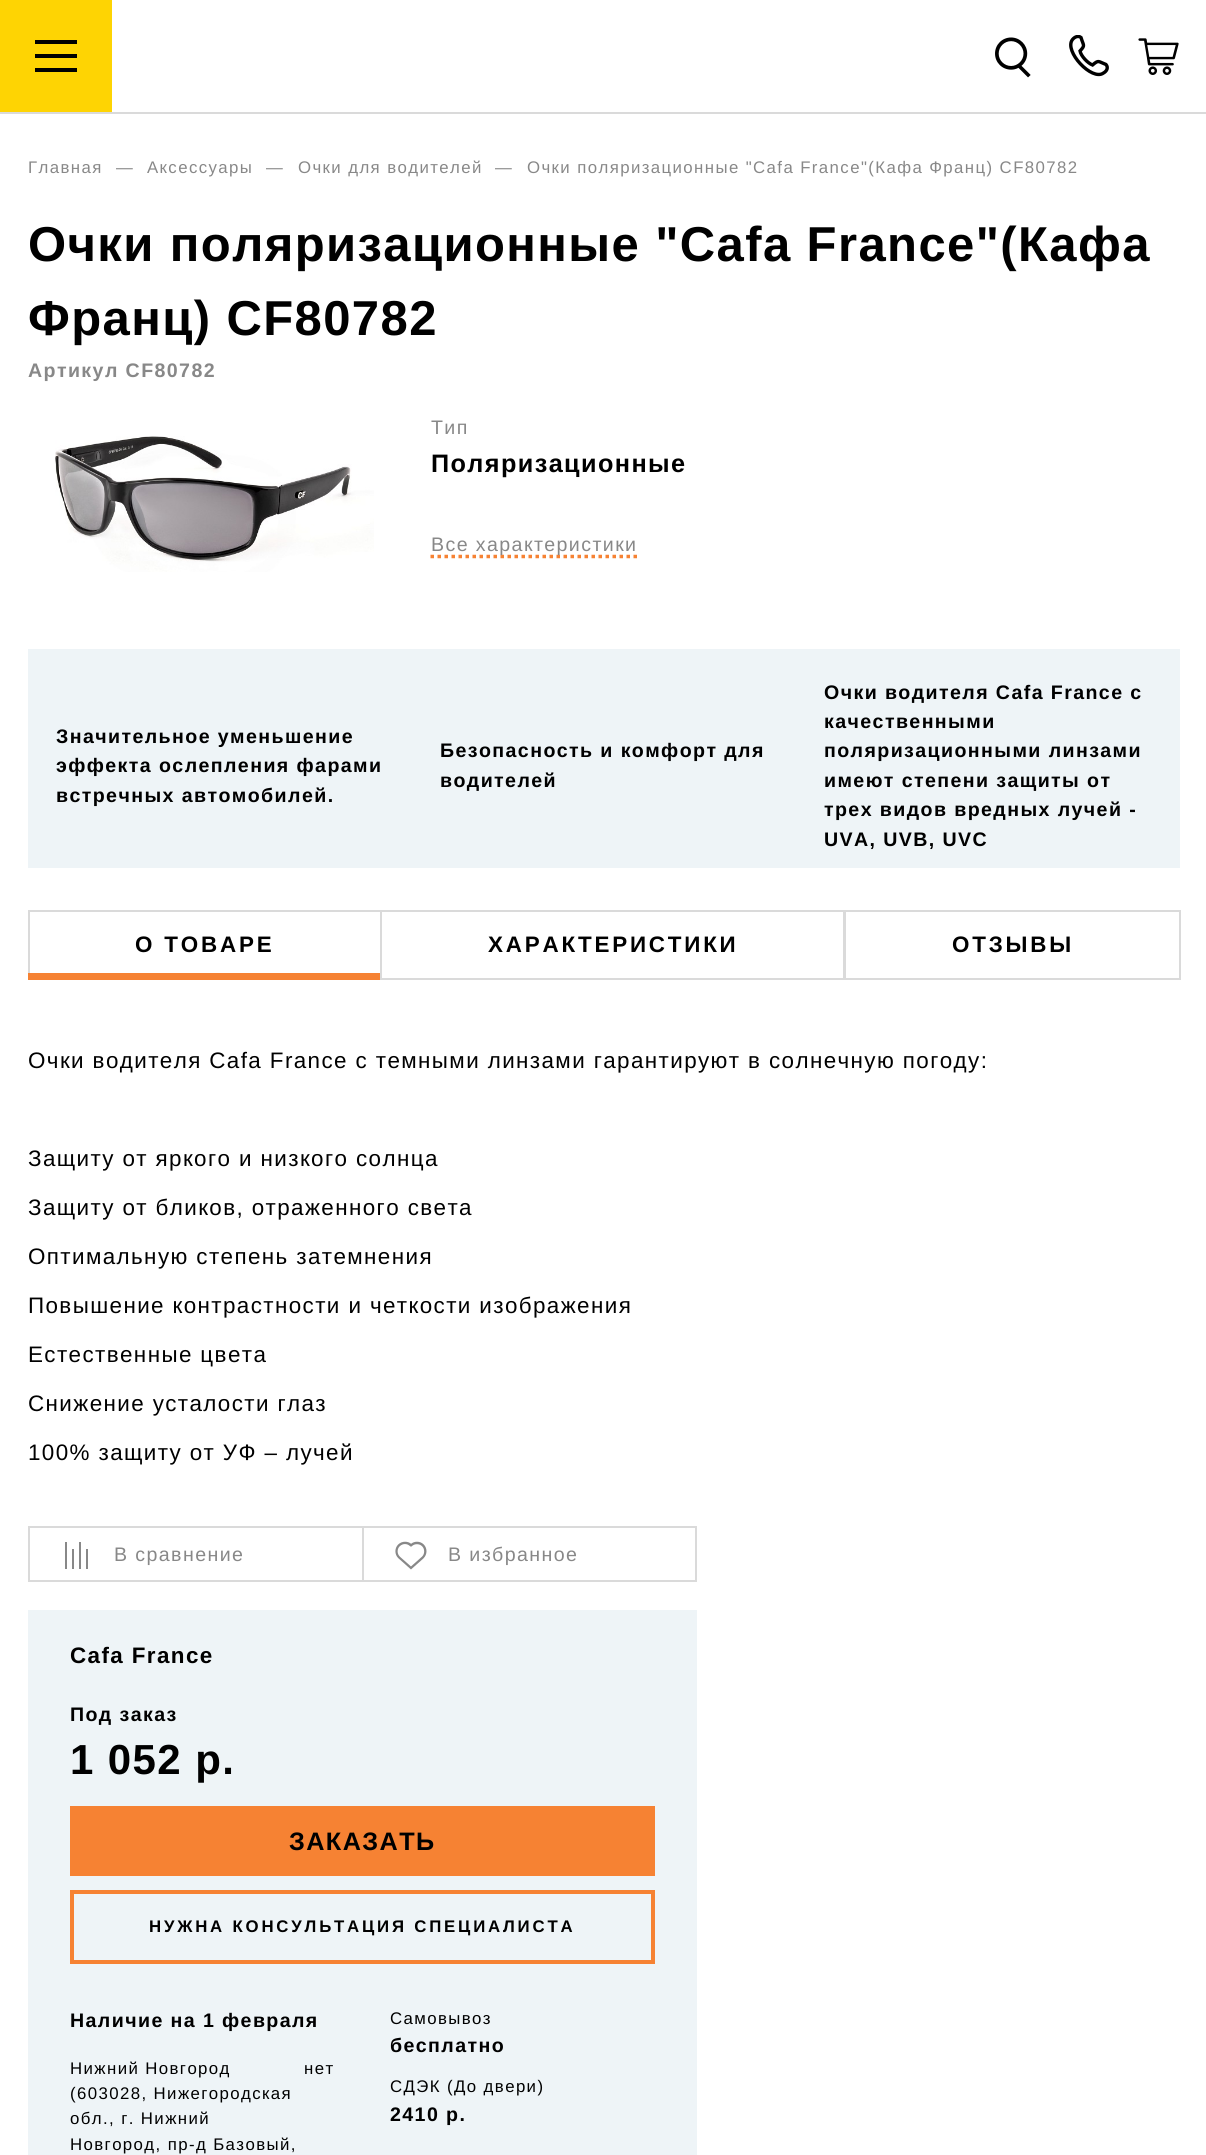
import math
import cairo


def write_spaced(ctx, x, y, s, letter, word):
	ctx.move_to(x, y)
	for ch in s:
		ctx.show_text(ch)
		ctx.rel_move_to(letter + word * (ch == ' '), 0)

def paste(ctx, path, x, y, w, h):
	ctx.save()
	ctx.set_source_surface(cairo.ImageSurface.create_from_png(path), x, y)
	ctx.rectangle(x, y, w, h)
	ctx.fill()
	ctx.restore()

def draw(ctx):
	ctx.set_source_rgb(1, 1, 1)
	ctx.paint()
	ctx.set_source_rgb(0.855, 0.855, 0.855)
	ctx.rectangle(0, 112, 1206, 2)
	ctx.fill()
	ctx.set_source_rgb(0.996, 0.831, 0.012)
	ctx.rectangle(0, 0, 112, 112)
	ctx.fill()
	ctx.set_source_rgb(0, 0, 0)
	ctx.rectangle(35, 40, 42, 4)
	ctx.rectangle(35, 54, 42, 4)
	ctx.rectangle(35, 68, 42, 4)
	ctx.fill()
	paste(ctx, 'media/1.png', 995, 37, 36, 41)
	ctx.save()
	ctx.rectangle(1069, 35, 41, 42)
	ctx.clip()
	ctx.new_path()
	ctx.move_to(1081, 37.5)
	ctx.curve_to(1083.5, 46, 1085.5, 45, 1080, 51)
	ctx.curve_to(1081, 56, 1087.5, 63, 1092.5, 65)
	ctx.curve_to(1099, 59.5, 1098, 61.5, 1106, 64.5)
	ctx.curve_to(1108.5, 67.5, 1107, 71, 1103.5, 73)
	ctx.curve_to(1092, 81.5, 1063.5, 51, 1072.5, 39.5)
	ctx.curve_to(1075, 36.5, 1078.5, 35.5, 1081, 37.5)
	ctx.close_path()
	ctx.set_line_width(3.4)
	ctx.stroke()
	ctx.restore()
	paste(ctx, 'media/2.png', 1138, 38, 41, 37)
	ctx.select_font_face('Liberation Sans')
	ctx.set_font_size(16.8)
	ctx.set_source_rgb(0.533, 0.533, 0.533)
	for x, y, s in [
		(28, 173, 'Главная'),
		(116, 173, '—'),
		(147, 173, 'Аксесcуары'),
		(266, 173, '—'),
		(298, 173, 'Очки для водителей'),
		(495, 173, '—'),
		(527, 173, 'Очки поляризационные "Cafa France"(Кафа Франц) CF80782'),
	]:
		write_spaced(ctx, x, y, s, 1.4, 0)
	ctx.select_font_face('Liberation Sans', cairo.FONT_SLANT_NORMAL, cairo.FONT_WEIGHT_BOLD)
	ctx.set_font_size(49)
	ctx.set_source_rgb(0, 0, 0)
	write_spaced(ctx, 28, 261, 'Очки поляризационные "Cafa France"(Кафа', 1.4, 0)
	write_spaced(ctx, 28, 335, 'Франц) CF80782', 1.4, 0)
	ctx.set_font_size(19.6)
	ctx.set_source_rgb(0.533, 0.533, 0.533)
	write_spaced(ctx, 28, 377, 'Артикул CF80782', 1.4, 0)
	paste(ctx, 'media/3.png', 55, 436, 319, 136)
	ctx.select_font_face('Liberation Sans')
	write_spaced(ctx, 431, 434, 'Тип', 1.4, 0)
	ctx.select_font_face('Liberation Sans', cairo.FONT_SLANT_NORMAL, cairo.FONT_WEIGHT_BOLD)
	ctx.set_font_size(25.25)
	ctx.set_source_rgb(0, 0, 0)
	write_spaced(ctx, 431, 472, 'Поляризационные', 1.4, 0)
	ctx.new_path()
	ctx.move_to(430.5, 556.5)
	ctx.line_to(637, 556.5)
	ctx.set_source_rgb(0.961, 0.51, 0.2)
	ctx.set_line_width(3.5)
	ctx.set_dash([3.5, 3.5])
	ctx.stroke()
	ctx.select_font_face('Liberation Sans')
	ctx.set_font_size(19.6)
	ctx.set_source_rgb(0.533, 0.533, 0.533)
	write_spaced(ctx, 431, 551, 'Все характеристики', 1.4, 0)
	ctx.set_source_rgb(0.933, 0.957, 0.965)
	ctx.rectangle(28, 649, 1152, 219)
	ctx.fill()
	ctx.select_font_face('Liberation Sans', cairo.FONT_SLANT_NORMAL, cairo.FONT_WEIGHT_BOLD)
	ctx.set_source_rgb(0, 0, 0)
	for x, y, s in [
		(56, 743, 'Значительное уменьшение'),
		(56, 772, 'эффекта ослепления фарами'),
		(56, 802, 'встречных автомобилей.'),
		(440, 757, 'Безопасность и комфорт для'),
		(440, 787, 'водителей'),
		(824, 699, 'Очки водителя Cafa France с'),
		(824, 728, 'качественными'),
		(824, 757, 'поляризационными линзами'),
		(824, 787, 'имеют степени защиты от'),
		(824, 816, 'трех видов вредных лучей -'),
		(824, 846, 'UVA, UVB, UVC'),
	]:
		write_spaced(ctx, x, y, s, 1.4, 0)
	ctx.rectangle(29, 911, 352, 68)
	ctx.set_source_rgb(0.855, 0.855, 0.855)
	ctx.set_line_width(2)
	ctx.set_dash([])
	ctx.stroke()
	ctx.set_font_size(22.4)
	ctx.set_source_rgb(0, 0, 0)
	write_spaced(ctx, 135, 952, 'О ТОВАРЕ', 2.8, 0)
	ctx.set_source_rgb(0.961, 0.51, 0.2)
	ctx.rectangle(28, 973, 354, 7)
	ctx.fill()
	ctx.rectangle(381, 911, 463, 68)
	ctx.set_source_rgb(0.855, 0.855, 0.855)
	ctx.stroke()
	ctx.set_source_rgb(0, 0, 0)
	write_spaced(ctx, 488, 952, 'ХАРАКТЕРИСТИКИ', 2.8, 0)
	ctx.rectangle(845, 911, 335, 68)
	ctx.set_source_rgb(0.855, 0.855, 0.855)
	ctx.stroke()
	ctx.set_source_rgb(0, 0, 0)
	write_spaced(ctx, 952, 952, 'ОТЗЫВЫ', 2.8, 0)
	ctx.select_font_face('Liberation Sans')
	for x, y, s in [
		(28, 1068, 'Очки водителя Cafa France c темными линзами гарантируют в солнечную погоду:'),
		(28, 1166, 'Защиту от яркого и низкого солнца'),
		(28, 1215, 'Защиту от бликов, отраженного света'),
		(28, 1264, 'Оптимальную степень затемнения'),
		(28, 1313, 'Повышение контрастности и четкости изображения'),
		(28, 1362, 'Естественные цвета'),
		(28, 1411, 'Снижение усталости глаз'),
		(28, 1460, '100% защиту от УФ – лучей'),
	]:
		write_spaced(ctx, x, y, s, 1.4, 0)
	ctx.rectangle(29, 1527, 334, 54)
	ctx.set_source_rgb(0.855, 0.855, 0.855)
	ctx.stroke()
	ctx.set_source_rgb(0.533, 0.533, 0.533)
	ctx.rectangle(65, 1542, 2, 27)
	ctx.rectangle(72, 1549, 2, 20)
	ctx.rectangle(79, 1542, 2, 27)
	ctx.rectangle(86, 1549, 2, 20)
	ctx.fill()
	ctx.set_font_size(19.6)
	write_spaced(ctx, 114, 1561, 'В сравнение', 1.4, 0)
	ctx.rectangle(363, 1527, 333, 54)
	ctx.set_source_rgb(0.855, 0.855, 0.855)
	ctx.stroke()
	paste(ctx, 'media/4.png', 395, 1541, 32, 29)
	ctx.set_source_rgb(0.533, 0.533, 0.533)
	write_spaced(ctx, 448, 1561, 'В избранное', 1.4, 0)
	ctx.set_source_rgb(0.933, 0.957, 0.965)
	ctx.rectangle(28, 1610, 669, 545)
	ctx.fill()
	ctx.select_font_face('Liberation Sans', cairo.FONT_SLANT_NORMAL, cairo.FONT_WEIGHT_BOLD)
	ctx.set_font_size(22.4)
	ctx.set_source_rgb(0, 0, 0)
	write_spaced(ctx, 70, 1663, 'Cafa France', 1.4, 0)
	ctx.set_font_size(19.6)
	write_spaced(ctx, 70, 1721, 'Под заказ', 1.4, 0)
	ctx.set_font_size(42)
	write_spaced(ctx, 70, 1774, '1 052 р.', 1.4, 0)
	ctx.set_source_rgb(0.961, 0.51, 0.2)
	ctx.rectangle(70, 1806, 585, 70)
	ctx.fill()
	ctx.set_font_size(25.25)
	ctx.set_source_rgb(0, 0, 0)
	write_spaced(ctx, 289, 1850, 'ЗАКАЗАТЬ', 1.4, 0)
	ctx.rectangle(72, 1892, 581, 70)
	ctx.set_source_rgb(0.961, 0.51, 0.2)
	ctx.set_line_width(4)
	ctx.stroke()
	ctx.set_font_size(16.8)
	ctx.set_source_rgb(0, 0, 0)
	write_spaced(ctx, 149, 1932, 'НУЖНА КОНСУЛЬТАЦИЯ СПЕЦИАЛИСТА', 2.8, 0)
	ctx.set_font_size(19.6)
	write_spaced(ctx, 70, 2027, 'Наличие на 1 февраля', 1.4, 0)
	ctx.select_font_face('Liberation Sans')
	ctx.set_font_size(16.8)
	for x, y, s in [
		(70, 2074, 'Нижний Новгород'),
		(70, 2099, '(603028, Нижегородская'),
		(70, 2124, 'обл., г. Нижний'),
		(70, 2150, 'Новгород, пр-д Базовый,'),
		(304, 2074, 'нет'),
		(390, 2024, 'Самовывоз'),
	]:
		write_spaced(ctx, x, y, s, 1.4, 0)
	ctx.select_font_face('Liberation Sans', cairo.FONT_SLANT_NORMAL, cairo.FONT_WEIGHT_BOLD)
	ctx.set_font_size(19.6)
	write_spaced(ctx, 390, 2052, 'бесплатно', 1.4, 0)
	ctx.select_font_face('Liberation Sans')
	ctx.set_font_size(16.8)
	write_spaced(ctx, 390, 2092, 'СДЭК (До двери)', 1.4, 0)
	ctx.select_font_face('Liberation Sans', cairo.FONT_SLANT_NORMAL, cairo.FONT_WEIGHT_BOLD)
	ctx.set_font_size(19.6)
	write_spaced(ctx, 390, 2121, '2410 р.', 1.4, 0)


surface = cairo.ImageSurface(cairo.FORMAT_RGB24, 1206, 2155)
ctx = cairo.Context(surface)
options = cairo.FontOptions()
options.set_hint_metrics(cairo.HINT_METRICS_OFF)
options.set_hint_style(cairo.HINT_STYLE_NONE)
ctx.set_font_options(options)
ctx.set_miter_limit(4)
draw(ctx)
surface.write_to_png('image.png')
